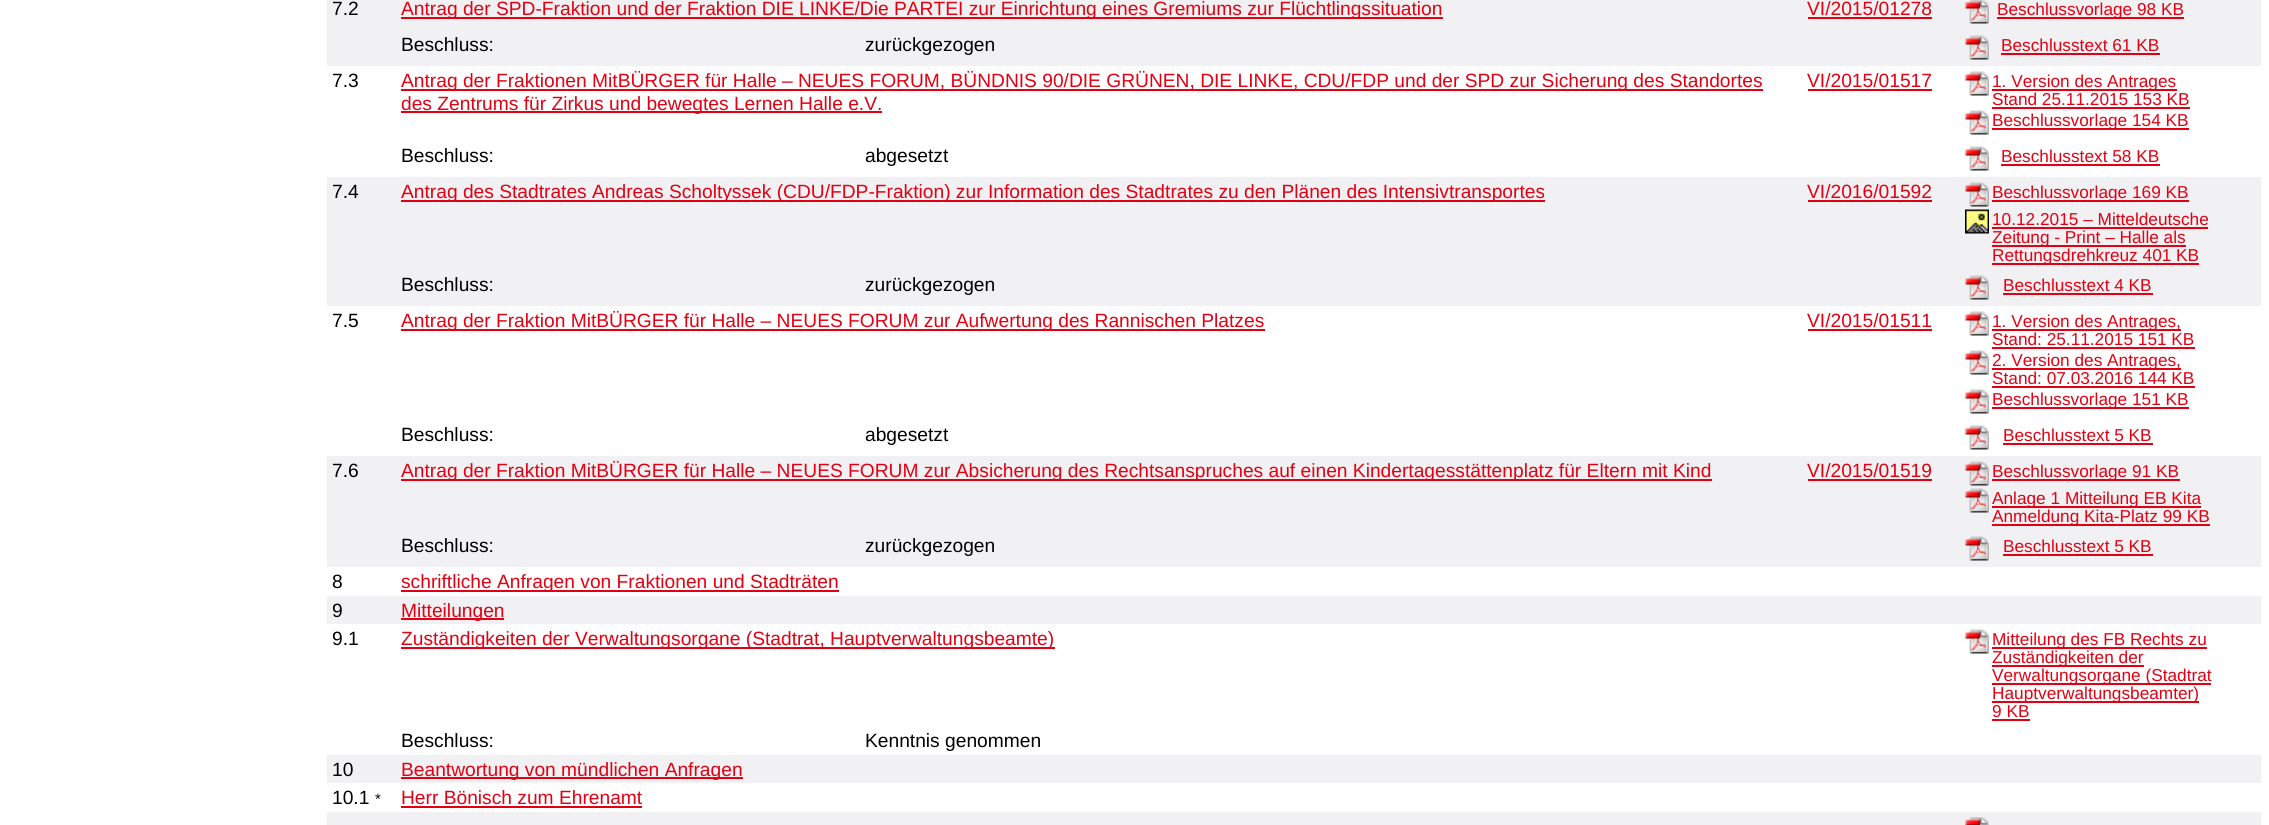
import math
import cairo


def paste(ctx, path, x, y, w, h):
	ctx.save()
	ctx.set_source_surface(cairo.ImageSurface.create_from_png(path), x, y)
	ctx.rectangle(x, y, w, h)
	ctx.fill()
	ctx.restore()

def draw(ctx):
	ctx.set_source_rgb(1, 1, 1)
	ctx.paint()
	ctx.set_source_rgb(0.945, 0.941, 0.949)
	ctx.rectangle(327, 0, 1934, 66)
	ctx.fill()
	ctx.select_font_face('Liberation Sans')
	ctx.set_font_size(19.2)
	ctx.set_source_rgb(0, 0, 0)
	ctx.move_to(332, 15)
	ctx.show_text('7.2')
	ctx.set_source_rgb(0.89, 0, 0.075)
	ctx.rectangle(401, 17, 1042, 2)
	ctx.fill()
	ctx.move_to(401, 15)
	ctx.show_text('Antrag der SPD-Fraktion und der Fraktion DIE LINKE/Die PARTEI zur Einrichtung eines Gremiums zur Flüchtlingssituation')
	ctx.move_to(1807, 15)
	ctx.show_text('VI/2015/01278')
	ctx.rectangle(1808, 17, 124, 2)
	ctx.fill()
	paste(ctx, 'media/1.png', 1965, 0, 24, 24)
	ctx.rectangle(1997, 17, 187, 2)
	ctx.fill()
	ctx.set_font_size(17.25)
	ctx.move_to(1997, 15)
	ctx.show_text('Beschlussvorlage 98 KB')
	ctx.set_font_size(19.2)
	ctx.set_source_rgb(0, 0, 0)
	ctx.move_to(401, 51)
	ctx.show_text('Beschluss:')
	ctx.move_to(865, 51)
	ctx.show_text('zurückgezogen')
	paste(ctx, 'media/2.png', 1965, 35, 24, 25)
	ctx.set_font_size(17.25)
	ctx.set_source_rgb(0.89, 0, 0.075)
	ctx.move_to(2001, 51)
	ctx.show_text('Beschlusstext 61 KB')
	ctx.rectangle(2001, 53, 159, 2)
	ctx.fill()
	ctx.set_font_size(19.2)
	ctx.set_source_rgb(0, 0, 0)
	ctx.move_to(332, 87)
	ctx.show_text('7.3')
	ctx.set_source_rgb(0.89, 0, 0.075)
	ctx.rectangle(401, 89, 1362, 2)
	ctx.fill()
	ctx.move_to(401, 87)
	ctx.show_text('Antrag der Fraktionen MitBÜRGER für Halle – NEUES FORUM, BÜNDNIS 90/DIE GRÜNEN, DIE LINKE, CDU/FDP und der SPD zur Sicherung des Standortes')
	ctx.rectangle(401, 111, 481, 2)
	ctx.fill()
	ctx.move_to(401, 110)
	ctx.show_text('des Zentrums für Zirkus und bewegtes Lernen Halle e.V.')
	ctx.move_to(1807, 87)
	ctx.show_text('VI/2015/01517')
	ctx.rectangle(1808, 89, 124, 2)
	ctx.fill()
	paste(ctx, 'media/3.png', 1965, 71, 24, 25)
	ctx.rectangle(1992, 89, 185, 2)
	ctx.fill()
	ctx.set_font_size(17.25)
	ctx.move_to(1992, 87)
	ctx.show_text('1. Version des Antrages')
	ctx.move_to(1992, 105)
	ctx.show_text('Stand 25.11.2015 153 KB')
	ctx.rectangle(1992, 107, 198, 2)
	ctx.fill()
	paste(ctx, 'media/3.png', 1965, 110, 24, 25)
	ctx.rectangle(1992, 128, 197, 2)
	ctx.fill()
	ctx.move_to(1992, 126)
	ctx.show_text('Beschlussvorlage 154 KB')
	ctx.set_font_size(19.2)
	ctx.set_source_rgb(0, 0, 0)
	ctx.move_to(401, 162)
	ctx.show_text('Beschluss:')
	ctx.move_to(865, 162)
	ctx.show_text('abgesetzt')
	paste(ctx, 'media/3.png', 1965, 146, 24, 25)
	ctx.set_font_size(17.25)
	ctx.set_source_rgb(0.89, 0, 0.075)
	ctx.move_to(2001, 162)
	ctx.show_text('Beschlusstext 58 KB')
	ctx.rectangle(2001, 164, 159, 2)
	ctx.fill()
	ctx.set_source_rgb(0.945, 0.941, 0.949)
	ctx.rectangle(327, 177, 1934, 129)
	ctx.fill()
	ctx.set_font_size(19.2)
	ctx.set_source_rgb(0, 0, 0)
	ctx.move_to(332, 198)
	ctx.show_text('7.4')
	ctx.set_source_rgb(0.89, 0, 0.075)
	ctx.rectangle(401, 200, 1144, 2)
	ctx.fill()
	ctx.move_to(401, 198)
	ctx.show_text('Antrag des Stadtrates Andreas Scholtyssek (CDU/FDP-Fraktion) zur Information des Stadtrates zu den Plänen des Intensivtransportes')
	ctx.move_to(1807, 198)
	ctx.show_text('VI/2016/01592')
	ctx.rectangle(1808, 200, 124, 2)
	ctx.fill()
	paste(ctx, 'media/2.png', 1965, 182, 24, 25)
	ctx.rectangle(1992, 200, 197, 2)
	ctx.fill()
	ctx.set_font_size(17.25)
	ctx.move_to(1992, 198)
	ctx.show_text('Beschlussvorlage 169 KB')
	paste(ctx, 'media/4.png', 1965, 209, 24, 25)
	ctx.move_to(1992, 225)
	ctx.show_text('10.12.2015 – Mitteldeutsche')
	ctx.rectangle(1992, 227, 216, 2)
	ctx.fill()
	ctx.rectangle(1992, 245, 194, 2)
	ctx.fill()
	ctx.move_to(1992, 243)
	ctx.show_text('Zeitung - Print – Halle als')
	ctx.rectangle(1992, 263, 207, 2)
	ctx.fill()
	ctx.move_to(1992, 261)
	ctx.show_text('Rettungsdrehkreuz 401 KB')
	ctx.set_font_size(19.2)
	ctx.set_source_rgb(0, 0, 0)
	ctx.move_to(401, 291)
	ctx.show_text('Beschluss:')
	ctx.move_to(865, 291)
	ctx.show_text('zurückgezogen')
	paste(ctx, 'media/2.png', 1965, 275, 24, 25)
	ctx.set_font_size(17.25)
	ctx.set_source_rgb(0.89, 0, 0.075)
	ctx.move_to(2003, 291)
	ctx.show_text('Beschlusstext 4 KB')
	ctx.rectangle(2003, 293, 150, 2)
	ctx.fill()
	ctx.set_font_size(19.2)
	ctx.set_source_rgb(0, 0, 0)
	ctx.move_to(332, 327)
	ctx.show_text('7.5')
	ctx.set_source_rgb(0.89, 0, 0.075)
	ctx.rectangle(401, 329, 864, 2)
	ctx.fill()
	ctx.move_to(401, 327)
	ctx.show_text('Antrag der Fraktion MitBÜRGER für Halle – NEUES FORUM zur Aufwertung des Rannischen Platzes')
	ctx.move_to(1807, 327)
	ctx.show_text('VI/2015/01511')
	ctx.rectangle(1808, 329, 124, 2)
	ctx.fill()
	paste(ctx, 'media/3.png', 1965, 311, 24, 25)
	ctx.rectangle(1992, 329, 189, 2)
	ctx.fill()
	ctx.set_font_size(17.25)
	ctx.move_to(1992, 327)
	ctx.show_text('1. Version des Antrages,')
	ctx.move_to(1992, 345)
	ctx.show_text('Stand: 25.11.2015 151 KB')
	ctx.rectangle(1992, 347, 203, 2)
	ctx.fill()
	paste(ctx, 'media/3.png', 1965, 350, 24, 25)
	ctx.rectangle(1992, 368, 189, 2)
	ctx.fill()
	ctx.move_to(1992, 366)
	ctx.show_text('2. Version des Antrages,')
	ctx.move_to(1992, 384)
	ctx.show_text('Stand: 07.03.2016 144 KB')
	ctx.rectangle(1992, 386, 203, 2)
	ctx.fill()
	paste(ctx, 'media/3.png', 1965, 389, 24, 25)
	ctx.rectangle(1992, 407, 197, 2)
	ctx.fill()
	ctx.move_to(1992, 405)
	ctx.show_text('Beschlussvorlage 151 KB')
	ctx.set_font_size(19.2)
	ctx.set_source_rgb(0, 0, 0)
	ctx.move_to(401, 441)
	ctx.show_text('Beschluss:')
	ctx.move_to(865, 441)
	ctx.show_text('abgesetzt')
	paste(ctx, 'media/3.png', 1965, 425, 24, 25)
	ctx.set_font_size(17.25)
	ctx.set_source_rgb(0.89, 0, 0.075)
	ctx.move_to(2003, 441)
	ctx.show_text('Beschlusstext 5 KB')
	ctx.rectangle(2003, 443, 150, 2)
	ctx.fill()
	ctx.set_source_rgb(0.945, 0.941, 0.949)
	ctx.rectangle(327, 456, 1934, 111)
	ctx.fill()
	ctx.set_font_size(19.2)
	ctx.set_source_rgb(0, 0, 0)
	ctx.move_to(332, 477)
	ctx.show_text('7.6')
	ctx.set_source_rgb(0.89, 0, 0.075)
	ctx.rectangle(401, 479, 1311, 2)
	ctx.fill()
	ctx.move_to(401, 477)
	ctx.show_text('Antrag der Fraktion MitBÜRGER für Halle – NEUES FORUM zur Absicherung des Rechtsanspruches auf einen Kindertagesstättenplatz für Eltern mit Kind')
	ctx.move_to(1807, 477)
	ctx.show_text('VI/2015/01519')
	ctx.rectangle(1808, 479, 124, 2)
	ctx.fill()
	paste(ctx, 'media/2.png', 1965, 461, 24, 25)
	ctx.rectangle(1992, 479, 188, 2)
	ctx.fill()
	ctx.set_font_size(17.25)
	ctx.move_to(1992, 477)
	ctx.show_text('Beschlussvorlage 91 KB')
	paste(ctx, 'media/2.png', 1965, 488, 24, 25)
	ctx.rectangle(1992, 506, 209, 2)
	ctx.fill()
	ctx.move_to(1992, 504)
	ctx.show_text('Anlage 1 Mitteilung EB Kita')
	ctx.rectangle(1992, 524, 218, 2)
	ctx.fill()
	ctx.move_to(1992, 522)
	ctx.show_text('Anmeldung Kita-Platz 99 KB')
	ctx.set_font_size(19.2)
	ctx.set_source_rgb(0, 0, 0)
	ctx.move_to(401, 552)
	ctx.show_text('Beschluss:')
	ctx.move_to(865, 552)
	ctx.show_text('zurückgezogen')
	paste(ctx, 'media/2.png', 1965, 536, 24, 25)
	ctx.set_font_size(17.25)
	ctx.set_source_rgb(0.89, 0, 0.075)
	ctx.move_to(2003, 552)
	ctx.show_text('Beschlusstext 5 KB')
	ctx.rectangle(2003, 554, 150, 2)
	ctx.fill()
	ctx.set_font_size(19.2)
	ctx.set_source_rgb(0, 0, 0)
	ctx.move_to(332, 588)
	ctx.show_text('8')
	ctx.set_source_rgb(0.89, 0, 0.075)
	ctx.rectangle(401, 590, 438, 2)
	ctx.fill()
	ctx.move_to(401, 588)
	ctx.show_text('schriftliche Anfragen von Fraktionen und Stadträten')
	ctx.set_source_rgb(0.945, 0.941, 0.949)
	ctx.rectangle(327, 596, 1934, 28)
	ctx.fill()
	ctx.set_source_rgb(0, 0, 0)
	ctx.move_to(332, 617)
	ctx.show_text('9')
	ctx.set_source_rgb(0.89, 0, 0.075)
	ctx.rectangle(401, 618, 103, 2)
	ctx.fill()
	ctx.move_to(401, 617)
	ctx.show_text('Mitteilungen')
	ctx.set_source_rgb(0, 0, 0)
	ctx.move_to(332, 645)
	ctx.show_text('9.1')
	ctx.set_source_rgb(0.89, 0, 0.075)
	ctx.rectangle(401, 647, 654, 2)
	ctx.fill()
	ctx.move_to(401, 645)
	ctx.show_text('Zuständigkeiten der Verwaltungsorgane (Stadtrat, Hauptverwaltungsbeamte)')
	paste(ctx, 'media/3.png', 1965, 629, 24, 25)
	ctx.rectangle(1992, 647, 215, 2)
	ctx.fill()
	ctx.set_font_size(17.25)
	ctx.move_to(1992, 645)
	ctx.show_text('Mitteilung des FB Rechts zu')
	ctx.rectangle(1992, 665, 152, 2)
	ctx.fill()
	ctx.move_to(1992, 663)
	ctx.show_text('Zuständigkeiten der')
	ctx.rectangle(1992, 683, 219, 2)
	ctx.fill()
	ctx.move_to(1992, 681)
	ctx.show_text('Verwaltungsorgane (Stadtrat')
	ctx.rectangle(1992, 701, 207, 2)
	ctx.fill()
	ctx.move_to(1992, 699)
	ctx.show_text('Hauptverwaltungsbeamter)')
	ctx.move_to(1992, 717)
	ctx.show_text('9 KB')
	ctx.rectangle(1992, 719, 38, 2)
	ctx.fill()
	ctx.set_font_size(19.2)
	ctx.set_source_rgb(0, 0, 0)
	ctx.move_to(401, 747)
	ctx.show_text('Beschluss:')
	ctx.move_to(865, 747)
	ctx.show_text('Kenntnis genommen')
	ctx.set_source_rgb(0.945, 0.941, 0.949)
	ctx.rectangle(327, 755, 1934, 28)
	ctx.fill()
	ctx.set_source_rgb(0, 0, 0)
	ctx.move_to(332, 776)
	ctx.show_text('10')
	ctx.set_source_rgb(0.89, 0, 0.075)
	ctx.rectangle(401, 777, 342, 2)
	ctx.fill()
	ctx.move_to(401, 776)
	ctx.show_text('Beantwortung von mündlichen Anfragen')
	ctx.set_source_rgb(0, 0, 0)
	ctx.move_to(332, 804)
	ctx.show_text('10.1')
	ctx.set_font_size(15)
	ctx.move_to(375, 804)
	ctx.show_text('*')
	ctx.set_font_size(19.2)
	ctx.set_source_rgb(0.89, 0, 0.075)
	ctx.move_to(401, 804)
	ctx.show_text('Herr Bönisch zum Ehrenamt')
	ctx.rectangle(401, 806, 241, 2)
	ctx.fill()
	ctx.set_source_rgb(0.945, 0.941, 0.949)
	ctx.rectangle(327, 812, 1934, 13)
	ctx.fill()
	paste(ctx, 'media/5.png', 1965, 817, 24, 8)


surface = cairo.ImageSurface(cairo.FORMAT_RGB24, 2269, 825)
ctx = cairo.Context(surface)
options = cairo.FontOptions()
options.set_hint_metrics(cairo.HINT_METRICS_OFF)
options.set_hint_style(cairo.HINT_STYLE_NONE)
ctx.set_font_options(options)
ctx.set_miter_limit(4)
draw(ctx)
surface.write_to_png('image.png')
